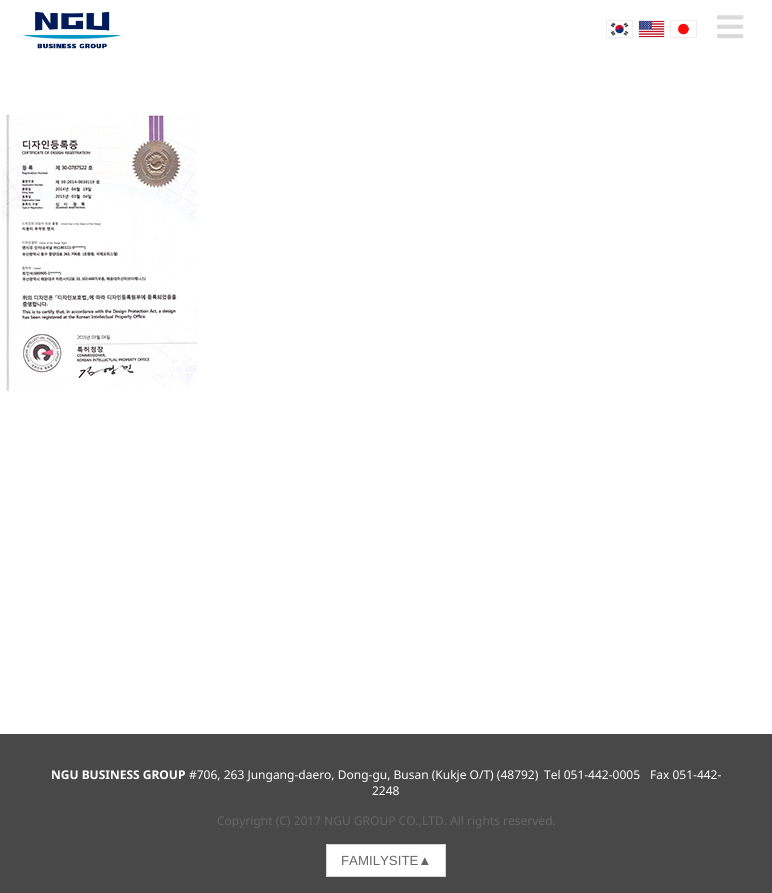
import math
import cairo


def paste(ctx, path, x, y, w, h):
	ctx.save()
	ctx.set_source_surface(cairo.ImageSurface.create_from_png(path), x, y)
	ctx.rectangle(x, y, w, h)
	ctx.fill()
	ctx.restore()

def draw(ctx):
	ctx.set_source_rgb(1, 1, 1)
	ctx.paint()
	ctx.rectangle(606.5, 20.5, 26, 17)
	ctx.set_source_rgb(0.933, 0.933, 0.933)
	ctx.set_line_width(1)
	ctx.stroke()
	paste(ctx, 'media/1.png', 610, 22, 19, 14)
	ctx.rectangle(638.5, 20.5, 26, 17)
	ctx.stroke()
	paste(ctx, 'media/2.png', 639, 21, 25, 16)
	ctx.rectangle(670.5, 20.5, 26, 17)
	ctx.stroke()
	paste(ctx, 'media/3.png', 677, 23, 12, 12)
	paste(ctx, 'media/4.png', 23, 11, 98, 38)
	paste(ctx, 'media/5.png', 717, 15, 27, 24)
	paste(ctx, 'media/6.png', 0, 113, 198, 279)
	ctx.set_source_rgb(0.282, 0.282, 0.282)
	ctx.rectangle(0, 734, 772, 159)
	ctx.fill()
	ctx.select_font_face('Noto Sans', cairo.FONT_SLANT_NORMAL, cairo.FONT_WEIGHT_BOLD)
	ctx.set_font_size(12)
	ctx.set_source_rgb(1, 1, 1)
	ctx.move_to(51, 779)
	ctx.show_text('NGU BUSINESS GROUP')
	ctx.select_font_face('Noto Sans')
	for x, y, s in [
		(189, 779, '#706, 263 Jungang-daero, Dong-gu, Busan (Kukje O/T) (48792)'),
		(544, 779, 'Tel 051-442-0005'),
		(650, 779, 'Fax 051-442-'),
		(372, 795, '2248'),
	]:
		ctx.move_to(x, y)
		ctx.show_text(s)
	ctx.set_source_rgb(0.4, 0.4, 0.4)
	ctx.move_to(217, 825)
	ctx.show_text('Copyright (C) 2017 NGU GROUP CO.,LTD. All rights reserved.')
	ctx.set_source_rgb(1, 1, 1)
	ctx.rectangle(326.5, 844.5, 119, 32)
	ctx.fill_preserve()
	ctx.set_source_rgb(0.839, 0.839, 0.839)
	ctx.stroke()
	ctx.select_font_face('Liberation Sans')
	ctx.set_font_size(13.25)
	ctx.set_source_rgb(0.4, 0.4, 0.4)
	ctx.move_to(341, 865)
	ctx.show_text('FAMILYSITE▲')


surface = cairo.ImageSurface(cairo.FORMAT_RGB24, 772, 893)
ctx = cairo.Context(surface)
options = cairo.FontOptions()
options.set_hint_metrics(cairo.HINT_METRICS_OFF)
options.set_hint_style(cairo.HINT_STYLE_NONE)
ctx.set_font_options(options)
ctx.set_miter_limit(4)
draw(ctx)
surface.write_to_png('image.png')
